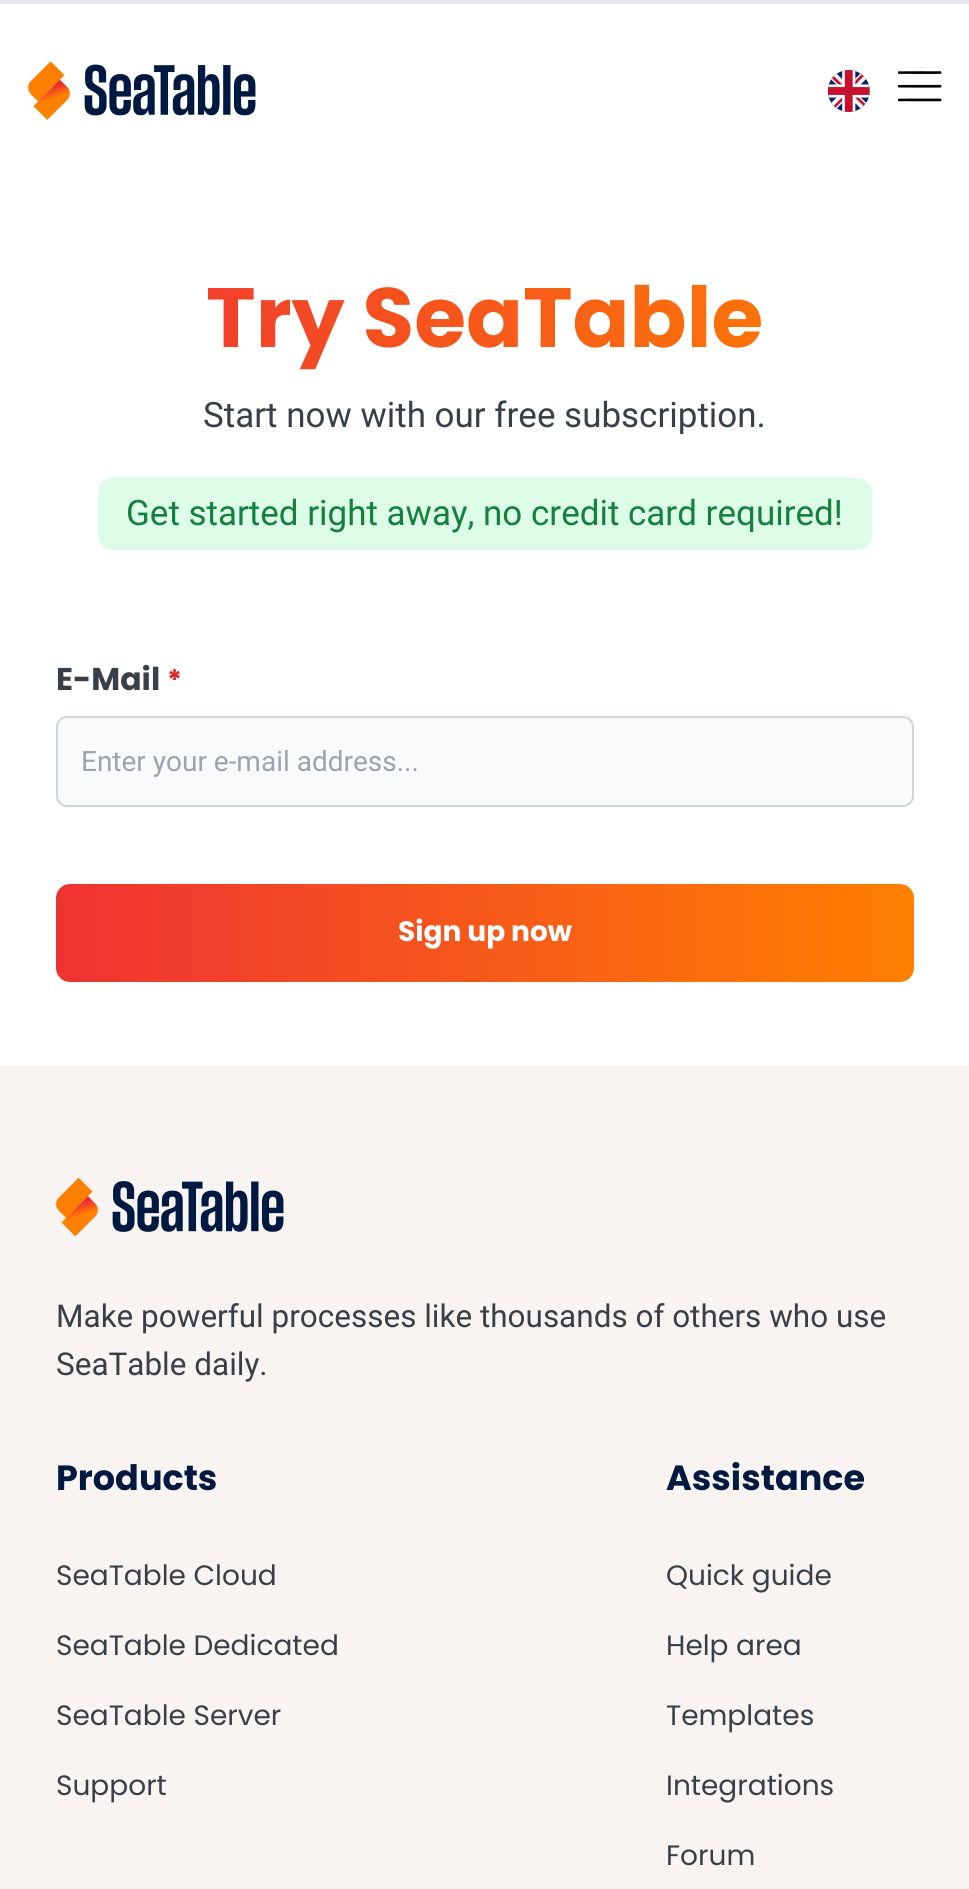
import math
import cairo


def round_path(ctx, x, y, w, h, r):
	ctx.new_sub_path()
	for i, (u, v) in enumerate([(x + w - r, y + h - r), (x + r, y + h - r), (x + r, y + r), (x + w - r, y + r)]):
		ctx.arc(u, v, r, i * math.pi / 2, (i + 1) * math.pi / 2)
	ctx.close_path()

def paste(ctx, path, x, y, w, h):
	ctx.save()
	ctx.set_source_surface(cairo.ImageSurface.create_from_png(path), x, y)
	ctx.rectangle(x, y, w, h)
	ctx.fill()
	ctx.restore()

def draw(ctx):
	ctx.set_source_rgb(1, 1, 1)
	ctx.paint()
	ctx.set_source_rgb(0.898, 0.906, 0.922)
	ctx.rectangle(0, 0, 969, 4)
	ctx.fill()
	paste(ctx, 'media/1.png', 28, 61, 228, 59)
	paste(ctx, 'media/2.png', 828, 70, 42, 42)
	paste(ctx, 'media/3.png', 898, 71, 44, 31)
	ctx.select_font_face('Poppins', cairo.FONT_SLANT_NORMAL, cairo.FONT_WEIGHT_BOLD)
	ctx.set_font_size(84)
	gradient = cairo.LinearGradient(56, 319, 914, 319)
	gradient.add_color_stop_rgba(0, 0.933, 0.196, 0.204, 1)
	gradient.add_color_stop_rgba(1, 1, 0.502, 0, 1)
	ctx.set_source(gradient)
	ctx.move_to(206, 347)
	ctx.show_text('Try SeaTable')
	ctx.select_font_face('Roboto')
	ctx.set_font_size(35)
	ctx.set_source_rgb(0.224, 0.247, 0.286)
	ctx.move_to(203, 427)
	ctx.show_text('Start now with our free subscription.')
	ctx.set_source_rgb(0.863, 0.988, 0.906)
	round_path(ctx, 98, 478, 774, 72, 14)
	ctx.fill()
	ctx.set_source_rgb(0.082, 0.502, 0.239)
	ctx.move_to(126, 525)
	ctx.show_text('Get started right away, no credit card required!')
	ctx.select_font_face('Poppins', cairo.FONT_SLANT_NORMAL, cairo.FONT_WEIGHT_BOLD)
	ctx.set_font_size(31.5)
	ctx.set_source_rgb(0.224, 0.247, 0.286)
	ctx.move_to(56, 690)
	ctx.show_text('E-Mail')
	ctx.set_font_size(28)
	ctx.set_source_rgb(0.863, 0.149, 0.149)
	ctx.move_to(167, 690)
	ctx.show_text('*')
	ctx.set_source_rgb(0.976, 0.98, 0.984)
	round_path(ctx, 56, 716, 858, 91, 11)
	ctx.fill()
	round_path(ctx, 57, 717, 856, 89, 10)
	ctx.set_source_rgb(0.82, 0.835, 0.859)
	ctx.stroke()
	ctx.select_font_face('Roboto')
	ctx.set_source_rgb(0.612, 0.639, 0.686)
	ctx.move_to(81, 771)
	ctx.show_text('Enter your e-mail address...')
	gradient = cairo.LinearGradient(56, 933, 914, 933)
	gradient.add_color_stop_rgba(0, 0.933, 0.196, 0.204, 1)
	gradient.add_color_stop_rgba(1, 1, 0.502, 0, 1)
	ctx.set_source(gradient)
	round_path(ctx, 56, 884, 858, 98, 14)
	ctx.fill()
	ctx.select_font_face('Poppins', cairo.FONT_SLANT_NORMAL, cairo.FONT_WEIGHT_BOLD)
	ctx.set_source_rgb(1, 1, 1)
	ctx.move_to(398, 941)
	ctx.show_text('Sign up now')
	ctx.set_source_rgb(0.973, 0.957, 0.949)
	ctx.rectangle(0, 1066, 969, 823)
	ctx.fill()
	paste(ctx, 'media/4.png', 56, 1178, 228, 59)
	ctx.select_font_face('Roboto')
	ctx.set_font_size(31.5)
	ctx.set_source_rgb(0.224, 0.247, 0.286)
	ctx.move_to(56, 1327)
	ctx.show_text('Make powerful processes like thousands of others who use')
	ctx.move_to(56, 1375)
	ctx.show_text('SeaTable daily.')
	ctx.select_font_face('Poppins', cairo.FONT_SLANT_NORMAL, cairo.FONT_WEIGHT_BOLD)
	ctx.set_font_size(35)
	ctx.set_source_rgb(0.008, 0.098, 0.251)
	ctx.move_to(56, 1490)
	ctx.show_text('Products')
	ctx.select_font_face('Poppins')
	ctx.set_font_size(28)
	ctx.set_source_rgb(0.224, 0.247, 0.286)
	for x, y, s in [
		(56, 1585, 'SeaTable Cloud'),
		(56, 1655, 'SeaTable Dedicated'),
		(56, 1725, 'SeaTable Server'),
		(56, 1795, 'Support'),
	]:
		ctx.move_to(x, y)
		ctx.show_text(s)
	ctx.select_font_face('Poppins', cairo.FONT_SLANT_NORMAL, cairo.FONT_WEIGHT_BOLD)
	ctx.set_font_size(35)
	ctx.set_source_rgb(0.008, 0.098, 0.251)
	ctx.move_to(666, 1490)
	ctx.show_text('Assistance')
	ctx.select_font_face('Poppins')
	ctx.set_font_size(28)
	ctx.set_source_rgb(0.224, 0.247, 0.286)
	for x, y, s in [
		(666, 1585, 'Quick guide'),
		(666, 1655, 'Help area'),
		(666, 1725, 'Templates'),
		(666, 1795, 'Integrations'),
		(666, 1865, 'Forum'),
	]:
		ctx.move_to(x, y)
		ctx.show_text(s)


surface = cairo.ImageSurface(cairo.FORMAT_RGB24, 969, 1889)
ctx = cairo.Context(surface)
options = cairo.FontOptions()
options.set_hint_metrics(cairo.HINT_METRICS_OFF)
options.set_hint_style(cairo.HINT_STYLE_NONE)
ctx.set_font_options(options)
ctx.set_miter_limit(4)
draw(ctx)
surface.write_to_png('image.png')
